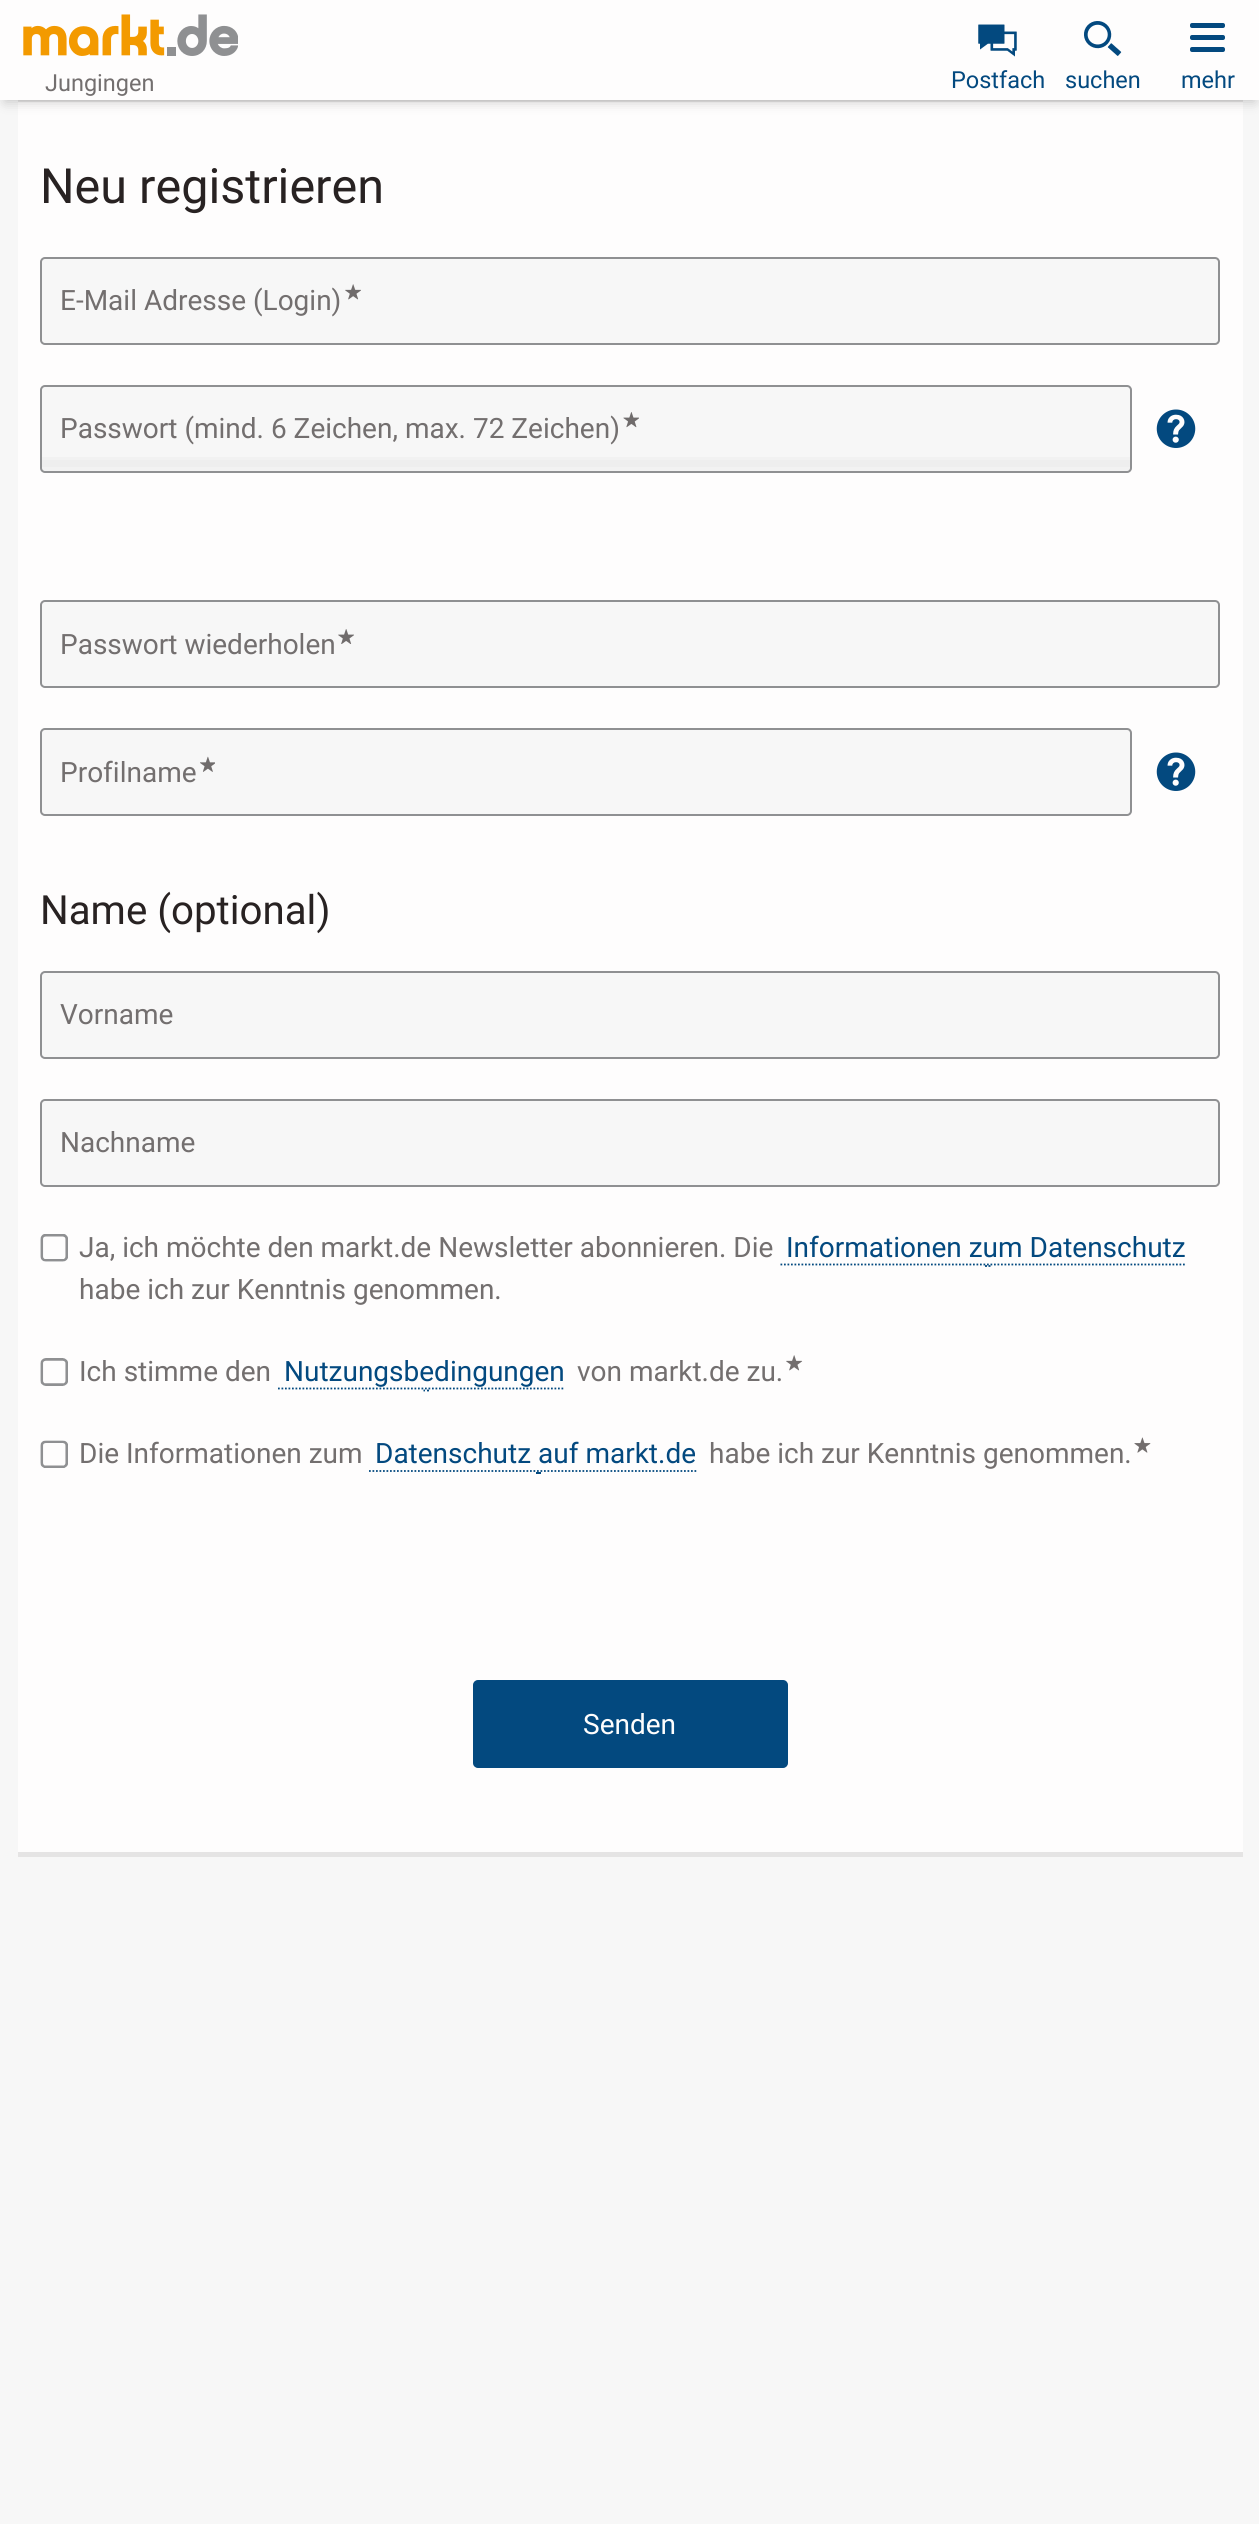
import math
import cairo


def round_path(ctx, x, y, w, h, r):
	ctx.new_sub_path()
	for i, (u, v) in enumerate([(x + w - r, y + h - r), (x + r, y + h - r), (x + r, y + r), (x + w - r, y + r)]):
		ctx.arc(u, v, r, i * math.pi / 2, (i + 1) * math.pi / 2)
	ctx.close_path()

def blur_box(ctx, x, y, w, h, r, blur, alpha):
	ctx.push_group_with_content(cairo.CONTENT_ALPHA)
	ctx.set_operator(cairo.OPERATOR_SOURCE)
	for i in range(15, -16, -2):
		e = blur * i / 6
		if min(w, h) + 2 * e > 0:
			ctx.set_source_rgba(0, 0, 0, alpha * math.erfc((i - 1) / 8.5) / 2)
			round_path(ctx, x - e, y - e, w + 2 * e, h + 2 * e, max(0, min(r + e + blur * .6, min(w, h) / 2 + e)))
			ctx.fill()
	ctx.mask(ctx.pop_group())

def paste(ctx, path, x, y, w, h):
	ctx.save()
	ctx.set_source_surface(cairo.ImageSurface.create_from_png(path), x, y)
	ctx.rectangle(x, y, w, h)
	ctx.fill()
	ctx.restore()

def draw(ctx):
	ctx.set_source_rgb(0.965, 0.965, 0.965)
	ctx.paint()
	ctx.set_source_rgb(0.996, 0.992, 0.992)
	ctx.rectangle(18, 102, 1225, 1750)
	ctx.fill()
	ctx.set_source_rgb(0.898, 0.894, 0.894)
	ctx.rectangle(18, 100, 1225, 2)
	ctx.fill()
	ctx.set_source_rgb(0, 0, 0)
	blur_box(ctx, 5, 12, 1250, 90, 0, 6, 0.2)
	ctx.set_source_rgb(0.996, 0.992, 0.992)
	ctx.rectangle(0, 0, 1259, 100)
	ctx.fill()
	paste(ctx, 'media/1.png', 23, 14, 215, 42)
	ctx.select_font_face('Roboto')
	ctx.set_font_size(23.5)
	ctx.set_source_rgb(0.451, 0.435, 0.435)
	ctx.move_to(45, 91)
	ctx.show_text('Jungingen')
	paste(ctx, 'media/2.png', 978, 24, 39, 33)
	ctx.set_source_rgb(0.012, 0.286, 0.498)
	ctx.move_to(951, 88)
	ctx.show_text('Postfach')
	paste(ctx, 'media/3.png', 1084, 21, 38, 35)
	ctx.move_to(1065, 88)
	ctx.show_text('suchen')
	round_path(ctx, 1190, 23, 35, 5, 2)
	ctx.fill()
	round_path(ctx, 1190, 35, 35, 5, 2)
	ctx.fill()
	round_path(ctx, 1190, 47, 35, 5, 2)
	ctx.fill()
	ctx.move_to(1181, 88)
	ctx.show_text('mehr')
	ctx.set_source_rgb(0.898, 0.894, 0.894)
	ctx.rectangle(18, 1852, 1225, 5)
	ctx.fill()
	ctx.set_font_size(48.5)
	ctx.set_source_rgb(0.157, 0.133, 0.133)
	ctx.move_to(40, 203)
	ctx.show_text('Neu registrieren')
	ctx.set_source_rgb(0.965, 0.965, 0.965)
	round_path(ctx, 41, 258, 1178, 86, 4)
	ctx.fill_preserve()
	ctx.set_source_rgb(0.561, 0.565, 0.573)
	ctx.stroke()
	ctx.set_font_size(28)
	ctx.set_source_rgb(0.451, 0.435, 0.435)
	ctx.move_to(60, 310)
	ctx.show_text('E-Mail Adresse (Login)')
	paste(ctx, 'media/4.png', 345, 284, 16, 16)
	paste(ctx, 'media/5.png', 1156, 409, 40, 39)
	ctx.set_source_rgb(0.965, 0.965, 0.965)
	round_path(ctx, 41, 386, 1090, 86, 4)
	ctx.fill_preserve()
	ctx.set_source_rgb(0.561, 0.565, 0.573)
	ctx.stroke()
	ctx.set_source_rgba(0.549, 0.549, 0.549, 0.05)
	ctx.rectangle(42, 457, 1088, 14)
	ctx.fill()
	ctx.rectangle(42, 460, 1089, 7)
	ctx.fill()
	ctx.set_source_rgb(0.451, 0.435, 0.435)
	ctx.move_to(60, 438)
	ctx.show_text('Passwort (mind. 6 Zeichen, max. 72 Zeichen)')
	paste(ctx, 'media/6.png', 623, 412, 16, 16)
	ctx.set_source_rgb(0.965, 0.965, 0.965)
	round_path(ctx, 41, 601, 1178, 86, 4)
	ctx.fill_preserve()
	ctx.set_source_rgb(0.561, 0.565, 0.573)
	ctx.stroke()
	ctx.set_source_rgb(0.451, 0.435, 0.435)
	ctx.move_to(60, 654)
	ctx.show_text('Passwort wiederholen')
	paste(ctx, 'media/7.png', 338, 629, 16, 15)
	ctx.set_source_rgb(0.965, 0.965, 0.965)
	round_path(ctx, 41, 729, 1090, 86, 4)
	ctx.fill_preserve()
	ctx.set_source_rgb(0.561, 0.565, 0.573)
	ctx.stroke()
	paste(ctx, 'media/5.png', 1156, 752, 40, 39)
	ctx.set_source_rgb(0.451, 0.435, 0.435)
	ctx.move_to(60, 782)
	ctx.show_text('Profilname')
	paste(ctx, 'media/8.png', 200, 756, 15, 16)
	ctx.set_font_size(40.25)
	ctx.set_source_rgb(0.157, 0.133, 0.133)
	ctx.move_to(40, 924)
	ctx.show_text('Name (optional)')
	ctx.set_source_rgb(0.965, 0.965, 0.965)
	round_path(ctx, 41, 972, 1178, 86, 4)
	ctx.fill_preserve()
	ctx.set_source_rgb(0.561, 0.565, 0.573)
	ctx.stroke()
	ctx.set_font_size(28)
	ctx.set_source_rgb(0.451, 0.435, 0.435)
	ctx.move_to(60, 1024)
	ctx.show_text('Vorname')
	ctx.set_source_rgb(0.965, 0.965, 0.965)
	round_path(ctx, 41, 1100, 1178, 86, 4)
	ctx.fill_preserve()
	ctx.set_source_rgb(0.561, 0.565, 0.573)
	ctx.stroke()
	ctx.set_source_rgb(0.451, 0.435, 0.435)
	ctx.move_to(60, 1152)
	ctx.show_text('Nachname')
	paste(ctx, 'media/9.png', 40, 1234, 28, 28)
	ctx.move_to(79, 1257)
	ctx.show_text('Ja, ich möchte den markt.de Newsletter abonnieren. Die')
	ctx.set_source_rgb(0.012, 0.286, 0.498)
	ctx.move_to(786, 1257)
	ctx.show_text('Informationen zum Datenschutz')
	ctx.new_path()
	ctx.move_to(780.5, 1264.5)
	ctx.line_to(1186.5, 1264.5)
	ctx.set_line_width(1.8)
	ctx.set_dash([1.75, 1.75])
	ctx.stroke()
	ctx.new_path()
	ctx.move_to(985, 1266)
	ctx.line_to(987, 1266)
	ctx.move_to(988.5, 1266)
	ctx.line_to(990.5, 1266)
	ctx.set_dash([])
	ctx.stroke()
	ctx.set_source_rgb(0.451, 0.435, 0.435)
	ctx.move_to(79, 1299)
	ctx.show_text('habe ich zur Kenntnis genommen.')
	paste(ctx, 'media/10.png', 40, 1358, 28, 28)
	ctx.move_to(79, 1381)
	ctx.show_text('Ich stimme den')
	ctx.set_source_rgb(0.012, 0.286, 0.498)
	ctx.move_to(284, 1381)
	ctx.show_text('Nutzungsbedingungen')
	ctx.new_path()
	ctx.move_to(278, 1388.5)
	ctx.line_to(565, 1388.5)
	ctx.set_dash([1.75, 1.75])
	ctx.stroke()
	ctx.new_path()
	ctx.move_to(423.5, 1390.5)
	ctx.line_to(425, 1390.5)
	ctx.move_to(427, 1390.5)
	ctx.line_to(429, 1390.5)
	ctx.set_dash([])
	ctx.stroke()
	ctx.set_source_rgb(0.451, 0.435, 0.435)
	ctx.move_to(577, 1381)
	ctx.show_text('von markt.de zu.')
	paste(ctx, 'media/11.png', 786, 1355, 17, 16)
	paste(ctx, 'media/12.png', 40, 1440, 28, 28)
	ctx.move_to(79, 1463)
	ctx.show_text('Die Informationen zum')
	ctx.set_source_rgb(0.012, 0.286, 0.498)
	ctx.move_to(375, 1463)
	ctx.show_text('Datenschutz auf markt.de')
	ctx.new_path()
	ctx.move_to(369, 1471)
	ctx.line_to(696.5, 1471)
	ctx.set_dash([1.75, 1.75])
	ctx.stroke()
	ctx.rectangle(536, 1472, 5, 2)
	ctx.fill()
	ctx.set_source_rgb(0.451, 0.435, 0.435)
	ctx.move_to(709, 1463)
	ctx.show_text('habe ich zur Kenntnis genommen.')
	paste(ctx, 'media/13.png', 1134, 1437, 17, 16)
	ctx.set_source_rgb(0.012, 0.286, 0.498)
	round_path(ctx, 474, 1681, 313, 86, 4)
	ctx.fill_preserve()
	ctx.set_line_width(2)
	ctx.set_dash([])
	ctx.stroke()
	ctx.set_source_rgb(0.996, 0.992, 0.992)
	ctx.move_to(583, 1734)
	ctx.show_text('Senden')


surface = cairo.ImageSurface(cairo.FORMAT_RGB24, 1259, 2524)
ctx = cairo.Context(surface)
options = cairo.FontOptions()
options.set_hint_metrics(cairo.HINT_METRICS_OFF)
options.set_hint_style(cairo.HINT_STYLE_NONE)
ctx.set_font_options(options)
ctx.set_miter_limit(4)
draw(ctx)
surface.write_to_png('image.png')
